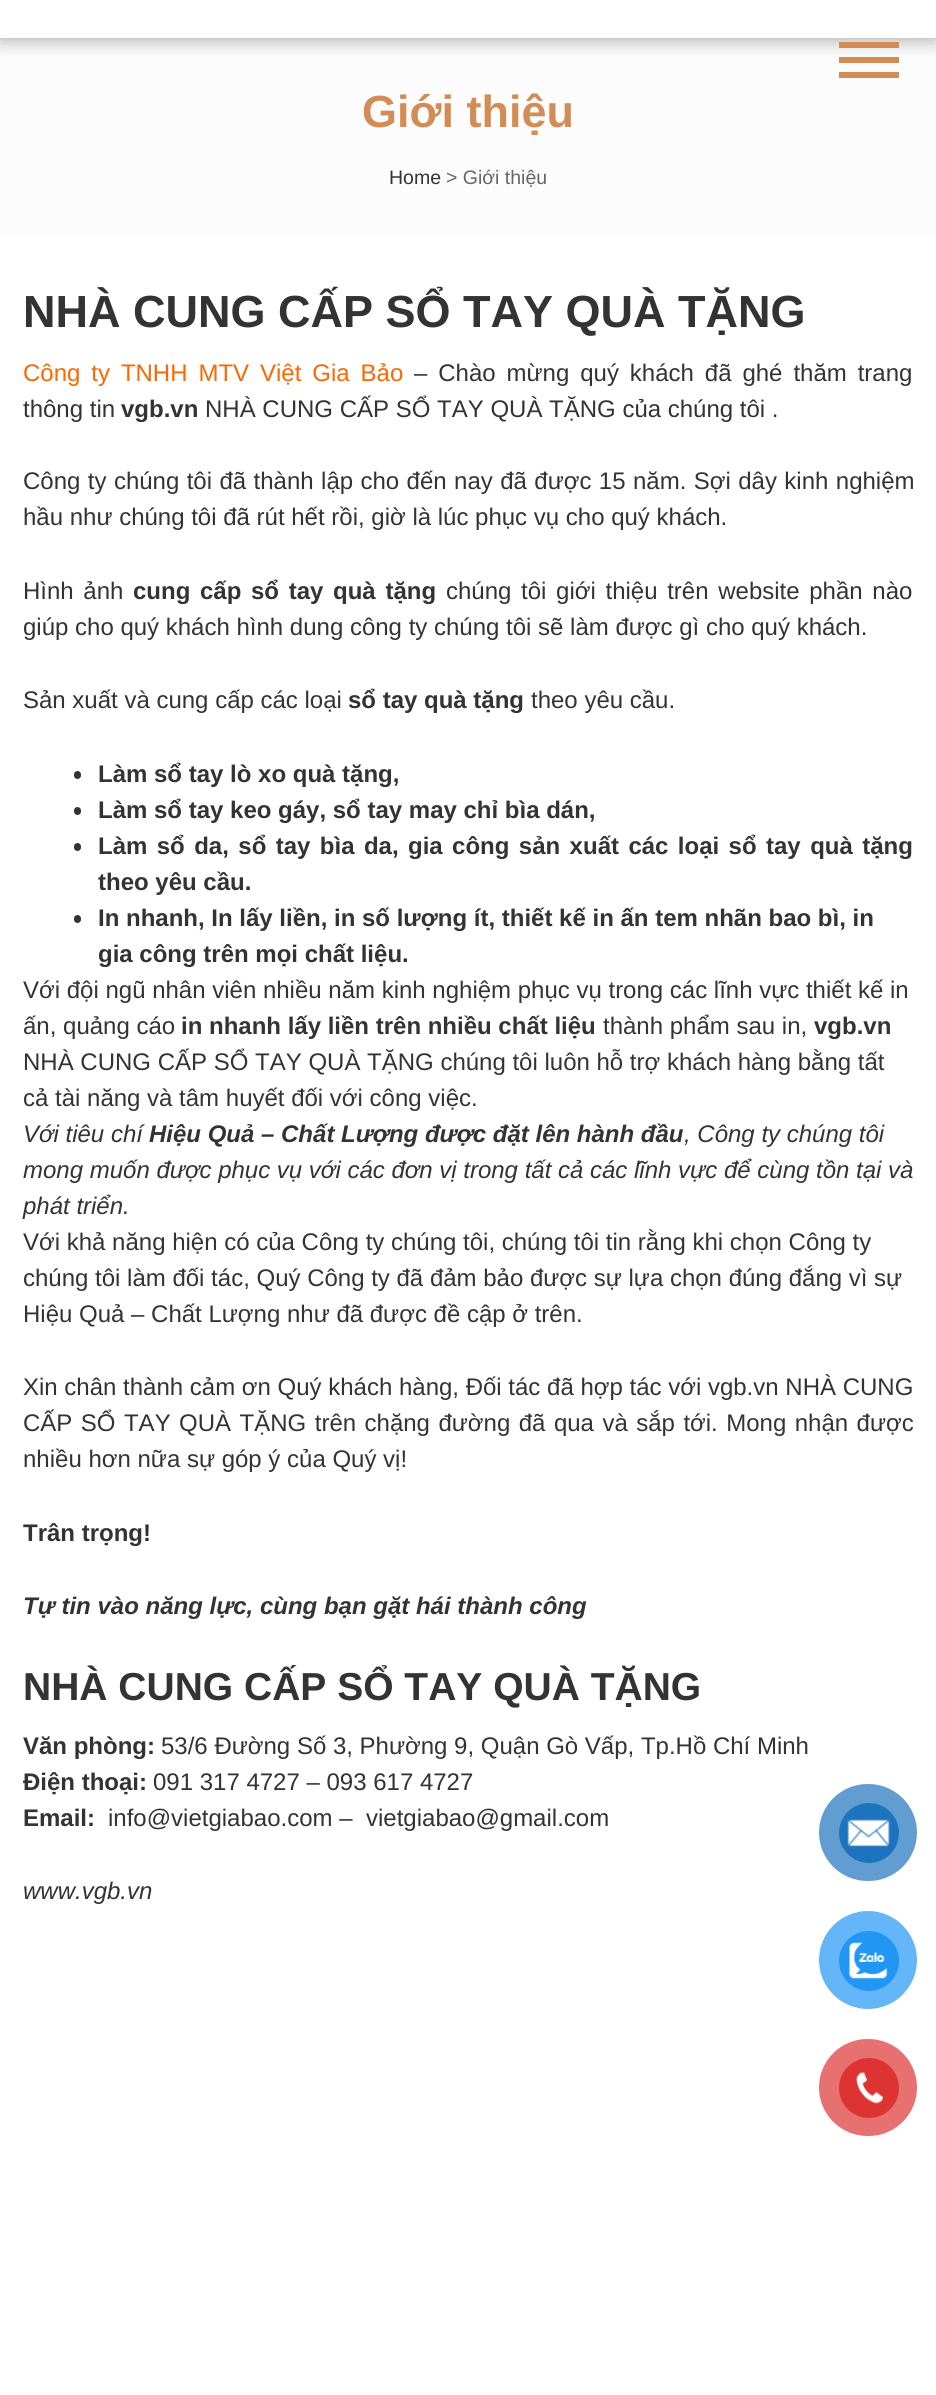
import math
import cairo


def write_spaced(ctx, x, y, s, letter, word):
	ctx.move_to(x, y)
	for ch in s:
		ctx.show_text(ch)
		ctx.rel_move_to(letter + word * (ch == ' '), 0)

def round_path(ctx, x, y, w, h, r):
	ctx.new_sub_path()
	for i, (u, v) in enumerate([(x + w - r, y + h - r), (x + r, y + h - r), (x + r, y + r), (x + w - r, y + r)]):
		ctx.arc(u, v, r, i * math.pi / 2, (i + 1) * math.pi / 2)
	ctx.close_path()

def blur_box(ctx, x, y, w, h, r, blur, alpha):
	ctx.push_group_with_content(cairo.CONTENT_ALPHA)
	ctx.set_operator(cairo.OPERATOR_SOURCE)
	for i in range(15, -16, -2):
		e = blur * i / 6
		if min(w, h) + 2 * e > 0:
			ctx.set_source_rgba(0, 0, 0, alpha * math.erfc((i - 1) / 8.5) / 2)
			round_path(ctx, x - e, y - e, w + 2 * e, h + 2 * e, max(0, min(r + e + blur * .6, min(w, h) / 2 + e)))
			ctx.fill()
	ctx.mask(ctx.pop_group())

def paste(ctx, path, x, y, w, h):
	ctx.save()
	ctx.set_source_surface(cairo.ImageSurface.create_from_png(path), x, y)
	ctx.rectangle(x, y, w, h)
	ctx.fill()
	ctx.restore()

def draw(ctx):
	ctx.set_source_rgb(1, 1, 1)
	ctx.paint()
	ctx.set_source_rgb(0.988, 0.988, 0.988)
	ctx.rectangle(0, 38, 936, 199)
	ctx.fill()
	ctx.set_source_rgb(0, 0, 0)
	blur_box(ctx, 0, 3, 936, 38, 0, 9, 0.3)
	ctx.set_source_rgb(1, 1, 1)
	ctx.rectangle(0, 0, 936, 38)
	ctx.fill()
	ctx.set_source_rgb(0.824, 0.553, 0.337)
	ctx.rectangle(839, 42, 60, 6)
	ctx.rectangle(839, 72, 60, 6)
	ctx.rectangle(839, 57, 60, 6)
	ctx.fill()
	ctx.select_font_face('Liberation Sans', cairo.FONT_SLANT_NORMAL, cairo.FONT_WEIGHT_BOLD)
	ctx.set_font_size(45)
	ctx.move_to(362, 127)
	ctx.show_text('Giới thiệu')
	ctx.select_font_face('Liberation Sans')
	ctx.set_font_size(19.5)
	ctx.set_source_rgb(0.2, 0.2, 0.2)
	ctx.move_to(389, 184)
	ctx.show_text('Home')
	ctx.set_source_rgb(0.4, 0.4, 0.4)
	ctx.move_to(446, 184)
	ctx.show_text('> Giới thiệu')
	ctx.select_font_face('Liberation Sans', cairo.FONT_SLANT_NORMAL, cairo.FONT_WEIGHT_BOLD)
	ctx.set_font_size(45)
	ctx.set_source_rgb(0.2, 0.2, 0.2)
	ctx.move_to(23, 327)
	ctx.show_text('NHÀ CUNG CẤP SỔ TAY QUÀ TẶNG')
	ctx.select_font_face('Liberation Sans')
	ctx.set_font_size(24)
	ctx.set_source_rgb(1, 0.4, 0)
	write_spaced(ctx, 23, 381, 'Công ty TNHH MTV Việt Gia Bảo', 0, 4.25)
	ctx.set_source_rgb(0.2, 0.2, 0.2)
	write_spaced(ctx, 414, 381, '– Chào mừng quý khách đã ghé thăm trang', 0, 4.25)
	ctx.move_to(23, 417)
	ctx.show_text('thông tin')
	ctx.select_font_face('Liberation Sans', cairo.FONT_SLANT_NORMAL, cairo.FONT_WEIGHT_BOLD)
	ctx.move_to(121, 417)
	ctx.show_text('vgb.vn')
	ctx.select_font_face('Liberation Sans')
	ctx.move_to(205, 417)
	ctx.show_text('NHÀ CUNG CẤP SỔ TAY QUÀ TẶNG của chúng tôi .')
	write_spaced(ctx, 23, 489, 'Công ty chúng tôi đã thành lập cho đến nay đã được 15 năm. Sợi dây kinh nghiệm', 0, 0.75)
	ctx.move_to(23, 525)
	ctx.show_text('hầu như chúng tôi đã rút hết rồi, giờ là lúc phục vụ cho quý khách.')
	write_spaced(ctx, 23, 599, 'Hình ảnh', 0, 3)
	ctx.select_font_face('Liberation Sans', cairo.FONT_SLANT_NORMAL, cairo.FONT_WEIGHT_BOLD)
	write_spaced(ctx, 133, 599, 'cung cấp sổ tay quà tặng', 0, 3)
	ctx.select_font_face('Liberation Sans')
	write_spaced(ctx, 446, 599, 'chúng tôi giới thiệu trên website phần nào', 0, 3)
	ctx.move_to(23, 635)
	ctx.show_text('giúp cho quý khách hình dung công ty chúng tôi sẽ làm được gì cho quý khách.')
	ctx.move_to(23, 708)
	ctx.show_text('Sản xuất và cung cấp các loại')
	ctx.select_font_face('Liberation Sans', cairo.FONT_SLANT_NORMAL, cairo.FONT_WEIGHT_BOLD)
	ctx.move_to(348, 708)
	ctx.show_text('sổ tay quà tặng')
	ctx.select_font_face('Liberation Sans')
	ctx.move_to(531, 708)
	ctx.show_text('theo yêu cầu.')
	round_path(ctx, 74, 771, 7, 8, 3.5)
	ctx.fill()
	ctx.select_font_face('Liberation Sans', cairo.FONT_SLANT_NORMAL, cairo.FONT_WEIGHT_BOLD)
	ctx.move_to(98, 782)
	ctx.show_text('Làm sổ tay lò xo quà tặng,')
	round_path(ctx, 74, 807, 7, 8, 3.5)
	ctx.fill()
	ctx.move_to(98, 818)
	ctx.show_text('Làm sổ tay keo gáy, sổ tay may chỉ bìa dán,')
	round_path(ctx, 74, 843, 7, 8, 3.5)
	ctx.fill()
	write_spaced(ctx, 98, 854, 'Làm sổ da, sổ tay bìa da, gia công sản xuất các loại sổ tay quà tặng', 0, 2.75)
	ctx.move_to(98, 890)
	ctx.show_text('theo yêu cầu.')
	round_path(ctx, 74, 915, 7, 8, 3.5)
	ctx.fill()
	ctx.move_to(98, 926)
	ctx.show_text('In nhanh, In lấy liền, in số lượng ít, thiết kế in ấn tem nhãn bao bì, in')
	ctx.move_to(98, 962)
	ctx.show_text('gia công trên mọi chất liệu.')
	ctx.select_font_face('Liberation Sans')
	ctx.move_to(23, 998)
	ctx.show_text('Với đội ngũ nhân viên nhiều năm kinh nghiệm phục vụ trong các lĩnh vực thiết kế in')
	ctx.move_to(23, 1034)
	ctx.show_text('ấn, quảng cáo')
	ctx.select_font_face('Liberation Sans', cairo.FONT_SLANT_NORMAL, cairo.FONT_WEIGHT_BOLD)
	ctx.move_to(181, 1034)
	ctx.show_text('in nhanh lấy liền trên nhiều chất liệu')
	ctx.select_font_face('Liberation Sans')
	ctx.move_to(603, 1034)
	ctx.show_text('thành phẩm sau in,')
	ctx.select_font_face('Liberation Sans', cairo.FONT_SLANT_NORMAL, cairo.FONT_WEIGHT_BOLD)
	ctx.move_to(814, 1034)
	ctx.show_text('vgb.vn')
	ctx.select_font_face('Liberation Sans')
	ctx.move_to(23, 1070)
	ctx.show_text('NHÀ CUNG CẤP SỔ TAY QUÀ TẶNG chúng tôi luôn hỗ trợ khách hàng bằng tất')
	ctx.move_to(23, 1106)
	ctx.show_text('cả tài năng và tâm huyết đối với công việc.')
	ctx.select_font_face('Liberation Sans', cairo.FONT_SLANT_ITALIC)
	ctx.move_to(23, 1142)
	ctx.show_text('Với tiêu chí')
	ctx.select_font_face('Liberation Sans', cairo.FONT_SLANT_ITALIC, cairo.FONT_WEIGHT_BOLD)
	ctx.move_to(149, 1142)
	ctx.show_text('Hiệu Quả – Chất Lượng được đặt lên hành đầu')
	ctx.select_font_face('Liberation Sans', cairo.FONT_SLANT_ITALIC)
	for x, y, s in [
		(684, 1142, ', Công ty chúng tôi'),
		(23, 1178, 'mong muốn được phục vụ với các đơn vị trong tất cả các lĩnh vực để cùng tồn tại và'),
		(23, 1214, 'phát triển.'),
	]:
		ctx.move_to(x, y)
		ctx.show_text(s)
	ctx.select_font_face('Liberation Sans')
	for x, y, s in [
		(23, 1250, 'Với khả năng hiện có của Công ty chúng tôi, chúng tôi tin rằng khi chọn Công ty'),
		(23, 1286, 'chúng tôi làm đối tác, Quý Công ty đã đảm bảo được sự lựa chọn đúng đắng vì sự'),
		(23, 1322, 'Hiệu Quả – Chất Lượng như đã được đề cập ở trên.'),
		(23, 1395, 'Xin chân thành cảm ơn Quý khách hàng, Đối tác đã hợp tác với vgb.vn NHÀ CUNG'),
	]:
		ctx.move_to(x, y)
		ctx.show_text(s)
	write_spaced(ctx, 23, 1431, 'CẤP SỔ TAY QUÀ TẶNG trên chặng đường đã qua và sắp tới. Mong nhận được', 0, 1.8)
	ctx.move_to(23, 1467)
	ctx.show_text('nhiều hơn nữa sự góp ý của Quý vị!')
	ctx.select_font_face('Liberation Sans', cairo.FONT_SLANT_NORMAL, cairo.FONT_WEIGHT_BOLD)
	ctx.move_to(23, 1541)
	ctx.show_text('Trân trọng!')
	ctx.select_font_face('Liberation Sans', cairo.FONT_SLANT_ITALIC, cairo.FONT_WEIGHT_BOLD)
	ctx.move_to(23, 1614)
	ctx.show_text('Tự tin vào năng lực, cùng bạn gặt hái thành công')
	ctx.select_font_face('Liberation Sans', cairo.FONT_SLANT_NORMAL, cairo.FONT_WEIGHT_BOLD)
	ctx.set_font_size(39)
	ctx.move_to(23, 1700)
	ctx.show_text('NHÀ CUNG CẤP SỔ TAY QUÀ TẶNG')
	ctx.set_font_size(24)
	ctx.move_to(23, 1754)
	ctx.show_text('Văn phòng:')
	ctx.select_font_face('Liberation Sans')
	ctx.move_to(161, 1754)
	ctx.show_text('53/6 Đường Số 3, Phường 9, Quận Gò Vấp, Tp.Hồ Chí Minh')
	ctx.select_font_face('Liberation Sans', cairo.FONT_SLANT_NORMAL, cairo.FONT_WEIGHT_BOLD)
	ctx.move_to(23, 1790)
	ctx.show_text('Điện thoại:')
	ctx.select_font_face('Liberation Sans')
	ctx.move_to(153, 1790)
	ctx.show_text('091 317 4727 – 093 617 4727')
	ctx.select_font_face('Liberation Sans', cairo.FONT_SLANT_NORMAL, cairo.FONT_WEIGHT_BOLD)
	ctx.move_to(23, 1826)
	ctx.show_text('Email:')
	ctx.select_font_face('Liberation Sans')
	ctx.move_to(108, 1826)
	ctx.show_text('info@vietgiabao.com –')
	ctx.move_to(366, 1826)
	ctx.show_text('vietgiabao@gmail.com')
	ctx.select_font_face('Liberation Sans', cairo.FONT_SLANT_ITALIC)
	ctx.move_to(23, 1899)
	ctx.show_text('www.vgb.vn')
	ctx.set_source_rgb(0.384, 0.616, 0.824)
	round_path(ctx, 819, 1784, 98, 97, 48.5)
	ctx.fill()
	ctx.set_source_rgb(0.118, 0.451, 0.745)
	ctx.arc(869, 1833, 30, 0, 2 * math.pi)
	ctx.fill()
	paste(ctx, 'media/1.png', 847, 1819, 43, 28)
	ctx.set_source_rgb(0.392, 0.714, 0.969)
	ctx.arc(868, 1960, 49, 0, 2 * math.pi)
	ctx.fill()
	ctx.set_source_rgb(0.129, 0.588, 0.953)
	ctx.arc(869, 1961, 30, 0, 2 * math.pi)
	ctx.fill()
	paste(ctx, 'media/2.png', 849, 1942, 39, 37)
	ctx.set_source_rgb(0.906, 0.439, 0.439)
	round_path(ctx, 819, 2039, 98, 97, 48.5)
	ctx.fill()
	ctx.set_source_rgb(0.867, 0.2, 0.2)
	ctx.arc(869, 2088, 30, 0, 2 * math.pi)
	ctx.fill()
	paste(ctx, 'media/3.png', 856, 2072, 27, 32)


surface = cairo.ImageSurface(cairo.FORMAT_RGB24, 936, 2395)
ctx = cairo.Context(surface)
options = cairo.FontOptions()
options.set_hint_metrics(cairo.HINT_METRICS_OFF)
options.set_hint_style(cairo.HINT_STYLE_NONE)
ctx.set_font_options(options)
ctx.set_miter_limit(4)
draw(ctx)
surface.write_to_png('image.png')
